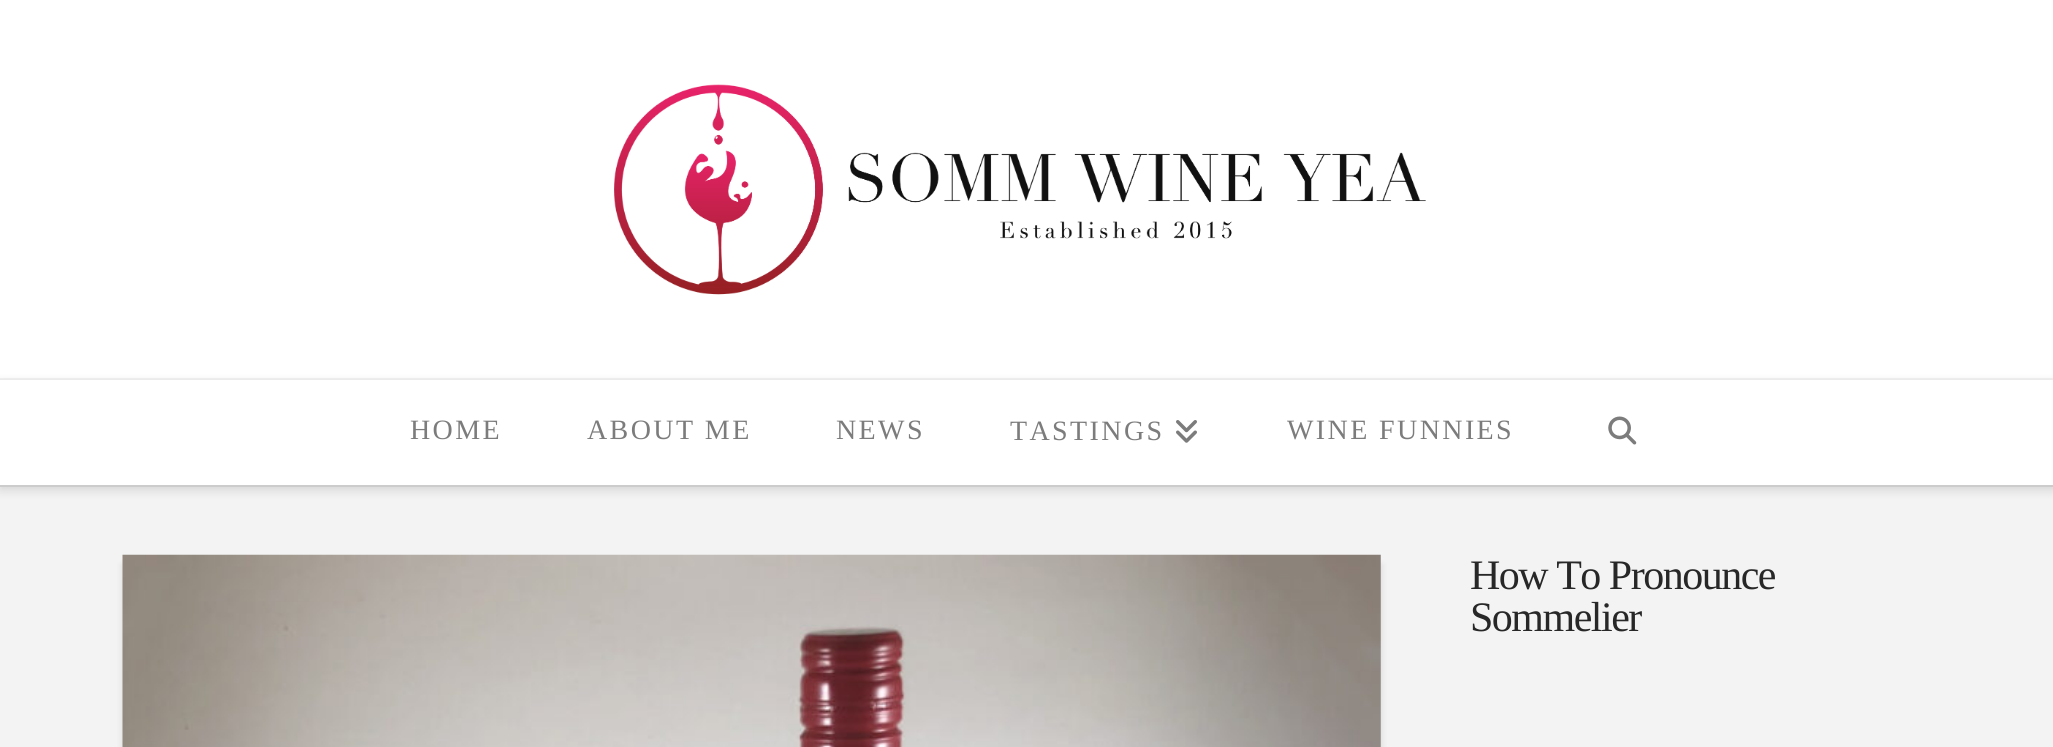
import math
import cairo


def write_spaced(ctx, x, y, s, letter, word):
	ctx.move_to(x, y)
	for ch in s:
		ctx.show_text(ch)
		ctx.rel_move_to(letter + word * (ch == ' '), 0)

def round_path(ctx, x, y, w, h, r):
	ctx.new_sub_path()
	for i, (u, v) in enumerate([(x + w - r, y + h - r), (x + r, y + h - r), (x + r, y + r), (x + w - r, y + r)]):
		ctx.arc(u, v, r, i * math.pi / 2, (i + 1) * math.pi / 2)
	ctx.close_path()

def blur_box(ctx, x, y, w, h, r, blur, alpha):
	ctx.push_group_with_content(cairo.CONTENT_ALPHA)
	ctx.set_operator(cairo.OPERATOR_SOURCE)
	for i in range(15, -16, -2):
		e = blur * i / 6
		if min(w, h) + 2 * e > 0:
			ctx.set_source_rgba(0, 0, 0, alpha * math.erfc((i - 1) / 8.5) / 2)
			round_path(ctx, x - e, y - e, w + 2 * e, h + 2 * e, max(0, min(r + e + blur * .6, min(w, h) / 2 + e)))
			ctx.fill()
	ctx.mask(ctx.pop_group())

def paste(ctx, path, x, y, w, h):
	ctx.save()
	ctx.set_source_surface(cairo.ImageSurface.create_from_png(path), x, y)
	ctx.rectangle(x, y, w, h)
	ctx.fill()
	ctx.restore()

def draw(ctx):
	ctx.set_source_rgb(0.953, 0.953, 0.953)
	ctx.paint()
	ctx.set_source_rgb(1, 1, 1)
	ctx.rectangle(0, 0, 2053, 378)
	ctx.fill()
	paste(ctx, 'media/1.png', 614, 84, 812, 211)
	ctx.set_source_rgb(0, 0, 0)
	blur_box(ctx, 0, 383, 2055, 107, 0, 5, 0.13)
	ctx.set_source_rgb(1, 1, 1)
	ctx.rectangle(0, 380, 2053, 105)
	ctx.fill()
	ctx.set_source_rgb(0.8, 0.8, 0.8)
	ctx.rectangle(0, 485, 2053, 2)
	ctx.fill()
	ctx.select_font_face('Liberation Serif')
	ctx.set_font_size(28)
	ctx.set_source_rgb(0.486, 0.486, 0.486)
	for x, y, s in [
		(410, 439, 'HOME'),
		(587, 439, 'ABOUT ME'),
		(836, 439, 'NEWS'),
		(1010, 440, 'TASTINGS'),
	]:
		write_spaced(ctx, x, y, s, 2.4, 0)
	paste(ctx, 'media/2.png', 1176, 420, 21, 23)
	write_spaced(ctx, 1287, 439, 'WINE FUNNIES', 2.4, 0)
	paste(ctx, 'media/3.png', 1608, 416, 29, 29)
	ctx.set_source_rgb(0, 0, 0)
	blur_box(ctx, 123, 565, 1244, 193, 0, 3.5, 0.13)
	blur_box(ctx, 137, 565, 1244, 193, 0, 3.5, 0.13)
	paste(ctx, 'media/4.png', 122, 554, 1259, 193)
	ctx.set_font_size(42)
	ctx.set_source_rgb(0.153, 0.153, 0.153)
	write_spaced(ctx, 1470, 589, 'How To Pronounce', -1.5, 0)
	write_spaced(ctx, 1470, 631, 'Sommelier', -1.5, 0)


surface = cairo.ImageSurface(cairo.FORMAT_RGB24, 2053, 747)
ctx = cairo.Context(surface)
options = cairo.FontOptions()
options.set_hint_metrics(cairo.HINT_METRICS_OFF)
options.set_hint_style(cairo.HINT_STYLE_NONE)
ctx.set_font_options(options)
ctx.set_miter_limit(4)
draw(ctx)
surface.write_to_png('image.png')
